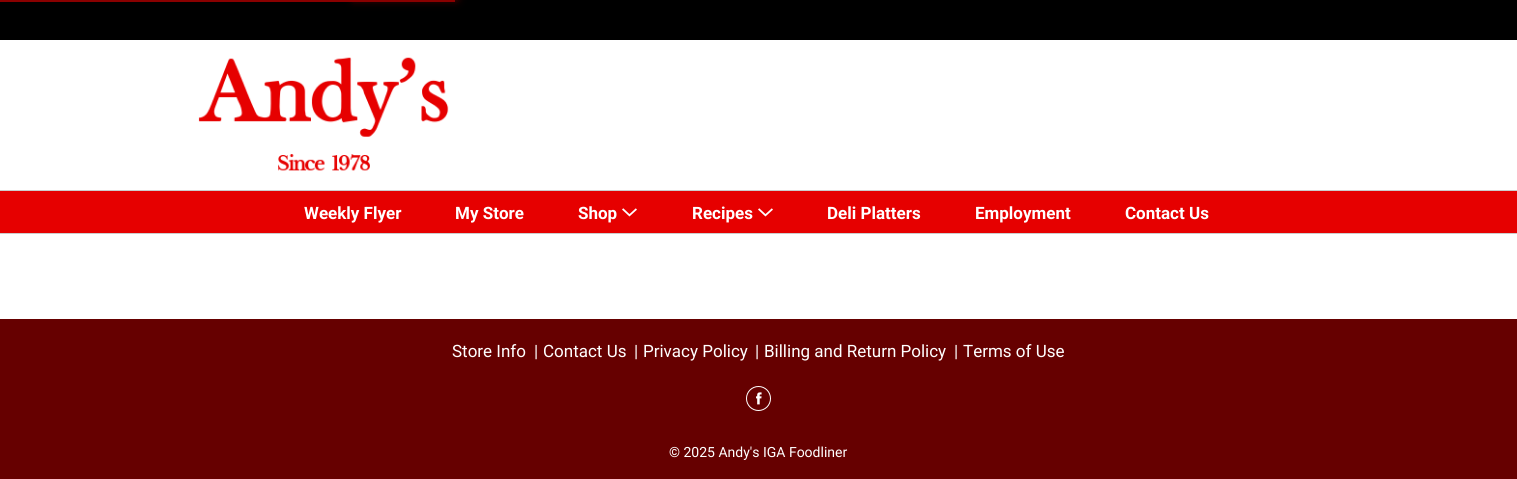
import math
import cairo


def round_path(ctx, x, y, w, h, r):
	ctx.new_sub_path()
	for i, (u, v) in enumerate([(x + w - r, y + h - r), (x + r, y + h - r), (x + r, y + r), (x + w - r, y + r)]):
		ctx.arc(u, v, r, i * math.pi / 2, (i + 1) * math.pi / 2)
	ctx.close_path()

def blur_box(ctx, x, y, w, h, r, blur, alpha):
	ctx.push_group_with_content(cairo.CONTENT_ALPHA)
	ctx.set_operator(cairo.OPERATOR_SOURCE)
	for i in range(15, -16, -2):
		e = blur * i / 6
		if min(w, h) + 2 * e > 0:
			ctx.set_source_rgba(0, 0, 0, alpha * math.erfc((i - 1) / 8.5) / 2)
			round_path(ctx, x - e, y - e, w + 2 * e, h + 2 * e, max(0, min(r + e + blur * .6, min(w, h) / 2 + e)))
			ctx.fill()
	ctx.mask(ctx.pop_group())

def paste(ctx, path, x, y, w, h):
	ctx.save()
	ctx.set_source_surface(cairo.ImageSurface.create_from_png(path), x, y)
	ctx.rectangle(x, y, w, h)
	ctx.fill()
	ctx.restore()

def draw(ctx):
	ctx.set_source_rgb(1, 1, 1)
	ctx.paint()
	ctx.set_source_rgb(0, 0, 0)
	ctx.rectangle(0, 0, 1517, 40)
	ctx.fill()
	ctx.set_source_rgb(0.541, 0, 0)
	ctx.rectangle(0, 0, 455, 2)
	ctx.fill()
	ctx.set_source_rgb(0.541, 0, 0)
	blur_box(ctx, 355, -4, 100, 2, 0, 5, 1)
	paste(ctx, 'media/1.png', 198, 57, 251, 114)
	ctx.set_source_rgb(0.902, 0, 0)
	ctx.rectangle(0, 191, 1517, 42)
	ctx.fill()
	ctx.set_source_rgb(0.8, 0.8, 0.8)
	ctx.rectangle(0, 190, 1517, 1)
	ctx.rectangle(0, 233, 1517, 1)
	ctx.fill()
	ctx.select_font_face('Roboto', cairo.FONT_SLANT_NORMAL, cairo.FONT_WEIGHT_BOLD)
	ctx.set_font_size(17)
	ctx.set_source_rgb(1, 1, 1)
	for x, y, s in [
		(304, 219, 'Weekly Flyer'),
		(455, 219, 'My Store'),
		(578, 219, 'Shop'),
	]:
		ctx.move_to(x, y)
		ctx.show_text(s)
	paste(ctx, 'media/2.png', 622, 208, 15, 9)
	ctx.move_to(692, 219)
	ctx.show_text('Recipes')
	paste(ctx, 'media/2.png', 758, 208, 15, 9)
	for x, y, s in [
		(827, 219, 'Deli Platters'),
		(975, 219, 'Employment'),
		(1125, 219, 'Contact Us'),
	]:
		ctx.move_to(x, y)
		ctx.show_text(s)
	ctx.set_source_rgb(0.4, 0, 0)
	ctx.rectangle(0, 319, 1517, 160)
	ctx.fill()
	ctx.select_font_face('Roboto')
	ctx.set_source_rgb(1, 1, 1)
	for x, y, s in [
		(452, 357, 'Store Info'),
		(534, 357, '|'),
		(543, 357, 'Contact Us'),
		(634, 357, '|'),
		(643, 357, 'Privacy Policy'),
		(755, 357, '|'),
		(764, 357, 'Billing and Return Policy'),
		(954, 357, '|'),
		(963, 357, 'Terms of Use'),
	]:
		ctx.move_to(x, y)
		ctx.show_text(s)
	ctx.new_path()
	ctx.arc(758.5, 398.5, 12, 0, 2 * math.pi)
	ctx.set_line_width(1)
	ctx.stroke()
	paste(ctx, 'media/3.png', 756, 392, 6, 13)
	ctx.set_font_size(14)
	ctx.move_to(669, 457)
	ctx.show_text('© 2025 Andy\'s IGA Foodliner')


surface = cairo.ImageSurface(cairo.FORMAT_RGB24, 1517, 479)
ctx = cairo.Context(surface)
options = cairo.FontOptions()
options.set_hint_metrics(cairo.HINT_METRICS_OFF)
options.set_hint_style(cairo.HINT_STYLE_NONE)
ctx.set_font_options(options)
ctx.set_miter_limit(4)
draw(ctx)
surface.write_to_png('image.png')
